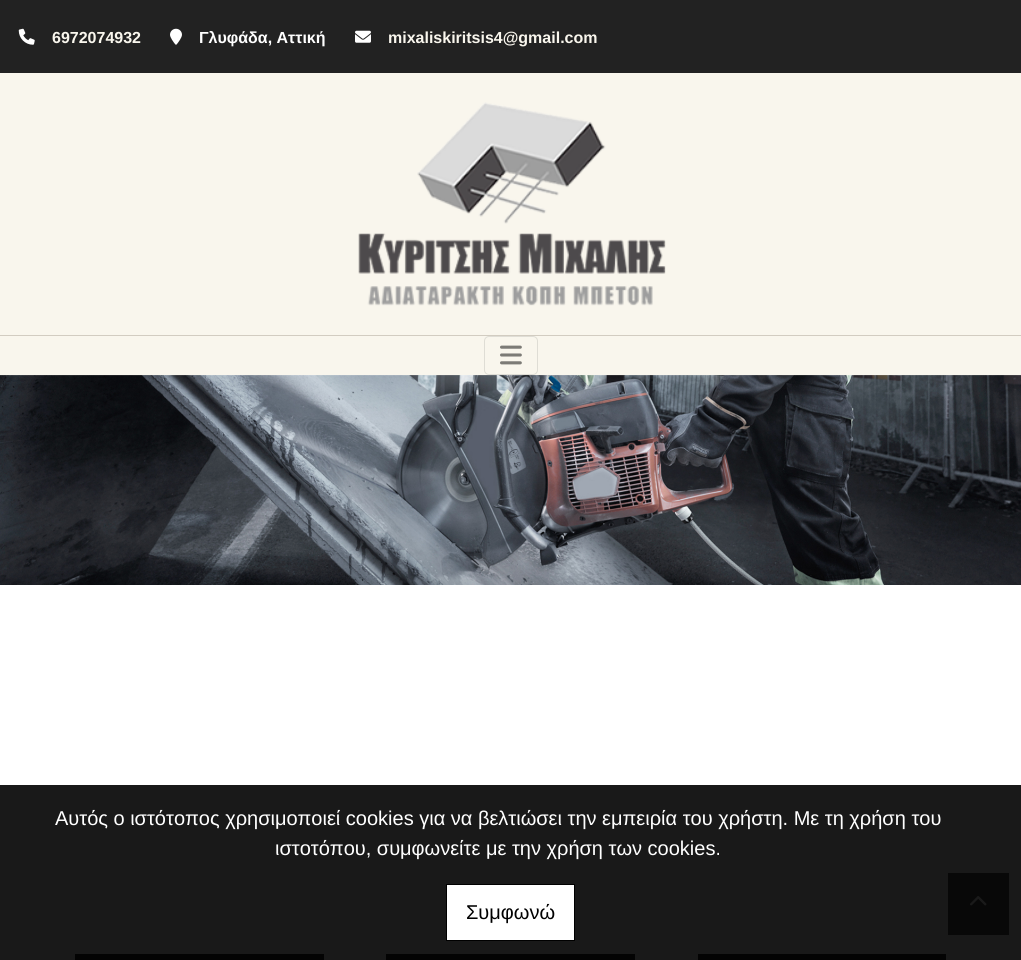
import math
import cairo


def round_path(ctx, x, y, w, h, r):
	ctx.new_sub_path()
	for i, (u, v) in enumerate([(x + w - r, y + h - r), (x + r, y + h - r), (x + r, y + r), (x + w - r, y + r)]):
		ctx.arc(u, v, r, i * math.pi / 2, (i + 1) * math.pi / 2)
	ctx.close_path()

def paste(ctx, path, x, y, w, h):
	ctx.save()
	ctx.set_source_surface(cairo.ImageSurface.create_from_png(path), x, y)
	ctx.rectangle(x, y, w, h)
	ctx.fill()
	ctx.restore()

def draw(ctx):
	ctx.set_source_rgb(1, 1, 1)
	ctx.paint()
	ctx.set_source_rgb(0.098, 0.098, 0.098)
	ctx.rectangle(0, 785, 1021, 175)
	ctx.fill()
	ctx.set_source_rgb(0.133, 0.133, 0.133)
	ctx.rectangle(0, 0, 1021, 73)
	ctx.fill()
	paste(ctx, 'media/1.png', 18, 28, 17, 17)
	ctx.select_font_face('Arimo', cairo.FONT_SLANT_NORMAL, cairo.FONT_WEIGHT_BOLD)
	ctx.set_font_size(16)
	ctx.set_source_rgb(0.973, 0.961, 0.929)
	ctx.move_to(52, 43)
	ctx.show_text('6972074932')
	paste(ctx, 'media/2.png', 170, 28, 12, 17)
	ctx.set_source_rgb(1, 1, 1)
	ctx.move_to(199, 43)
	ctx.show_text('Γλυφάδα, Αττική')
	paste(ctx, 'media/3.png', 355, 30, 16, 13)
	ctx.set_source_rgb(0.973, 0.961, 0.929)
	ctx.move_to(388, 43)
	ctx.show_text('mixaliskiritsis4@gmail.com')
	ctx.rectangle(0, 73, 1021, 262)
	ctx.fill()
	ctx.set_source_rgb(0.824, 0.8, 0.757)
	ctx.rectangle(0, 335, 1021, 1)
	ctx.fill()
	paste(ctx, 'media/4.png', 358, 102, 308, 204)
	ctx.set_source_rgb(0.973, 0.961, 0.929)
	ctx.rectangle(0, 336, 1021, 39)
	ctx.fill()
	round_path(ctx, 484.5, 336.5, 53, 38, 4.5)
	ctx.set_source_rgb(0.875, 0.867, 0.835)
	ctx.set_line_width(1)
	ctx.stroke()
	paste(ctx, 'media/5.png', 500, 345, 22, 20)
	paste(ctx, 'media/6.png', 0, 375, 1021, 210)
	ctx.select_font_face('Arimo')
	ctx.set_font_size(20)
	ctx.set_source_rgb(1, 1, 1)
	ctx.move_to(55, 825)
	ctx.show_text('Αυτός ο ιστότοπος χρησιμοποιεί cookies για να βελτιώσει την εμπειρία του χρήστη. Με τη χρήση του')
	ctx.move_to(275, 855)
	ctx.show_text('ιστοτόπου, συμφωνείτε με την χρήση των cookies.')
	ctx.rectangle(446.5, 884.5, 128, 56)
	ctx.fill_preserve()
	ctx.set_source_rgb(0, 0, 0)
	ctx.stroke()
	ctx.move_to(466, 919)
	ctx.show_text('Συμφωνώ')
	ctx.set_source_rgb(0.035, 0.035, 0.035)
	ctx.rectangle(948, 873, 61, 62)
	ctx.fill()
	paste(ctx, 'media/7.png', 970, 896, 17, 10)
	ctx.set_source_rgb(0.012, 0.012, 0.012)
	ctx.rectangle(75, 954, 249, 6)
	ctx.rectangle(386, 954, 249, 6)
	ctx.rectangle(698, 954, 248, 6)
	ctx.fill()


surface = cairo.ImageSurface(cairo.FORMAT_RGB24, 1021, 960)
ctx = cairo.Context(surface)
options = cairo.FontOptions()
options.set_hint_metrics(cairo.HINT_METRICS_OFF)
options.set_hint_style(cairo.HINT_STYLE_NONE)
ctx.set_font_options(options)
ctx.set_miter_limit(4)
draw(ctx)
surface.write_to_png('image.png')
